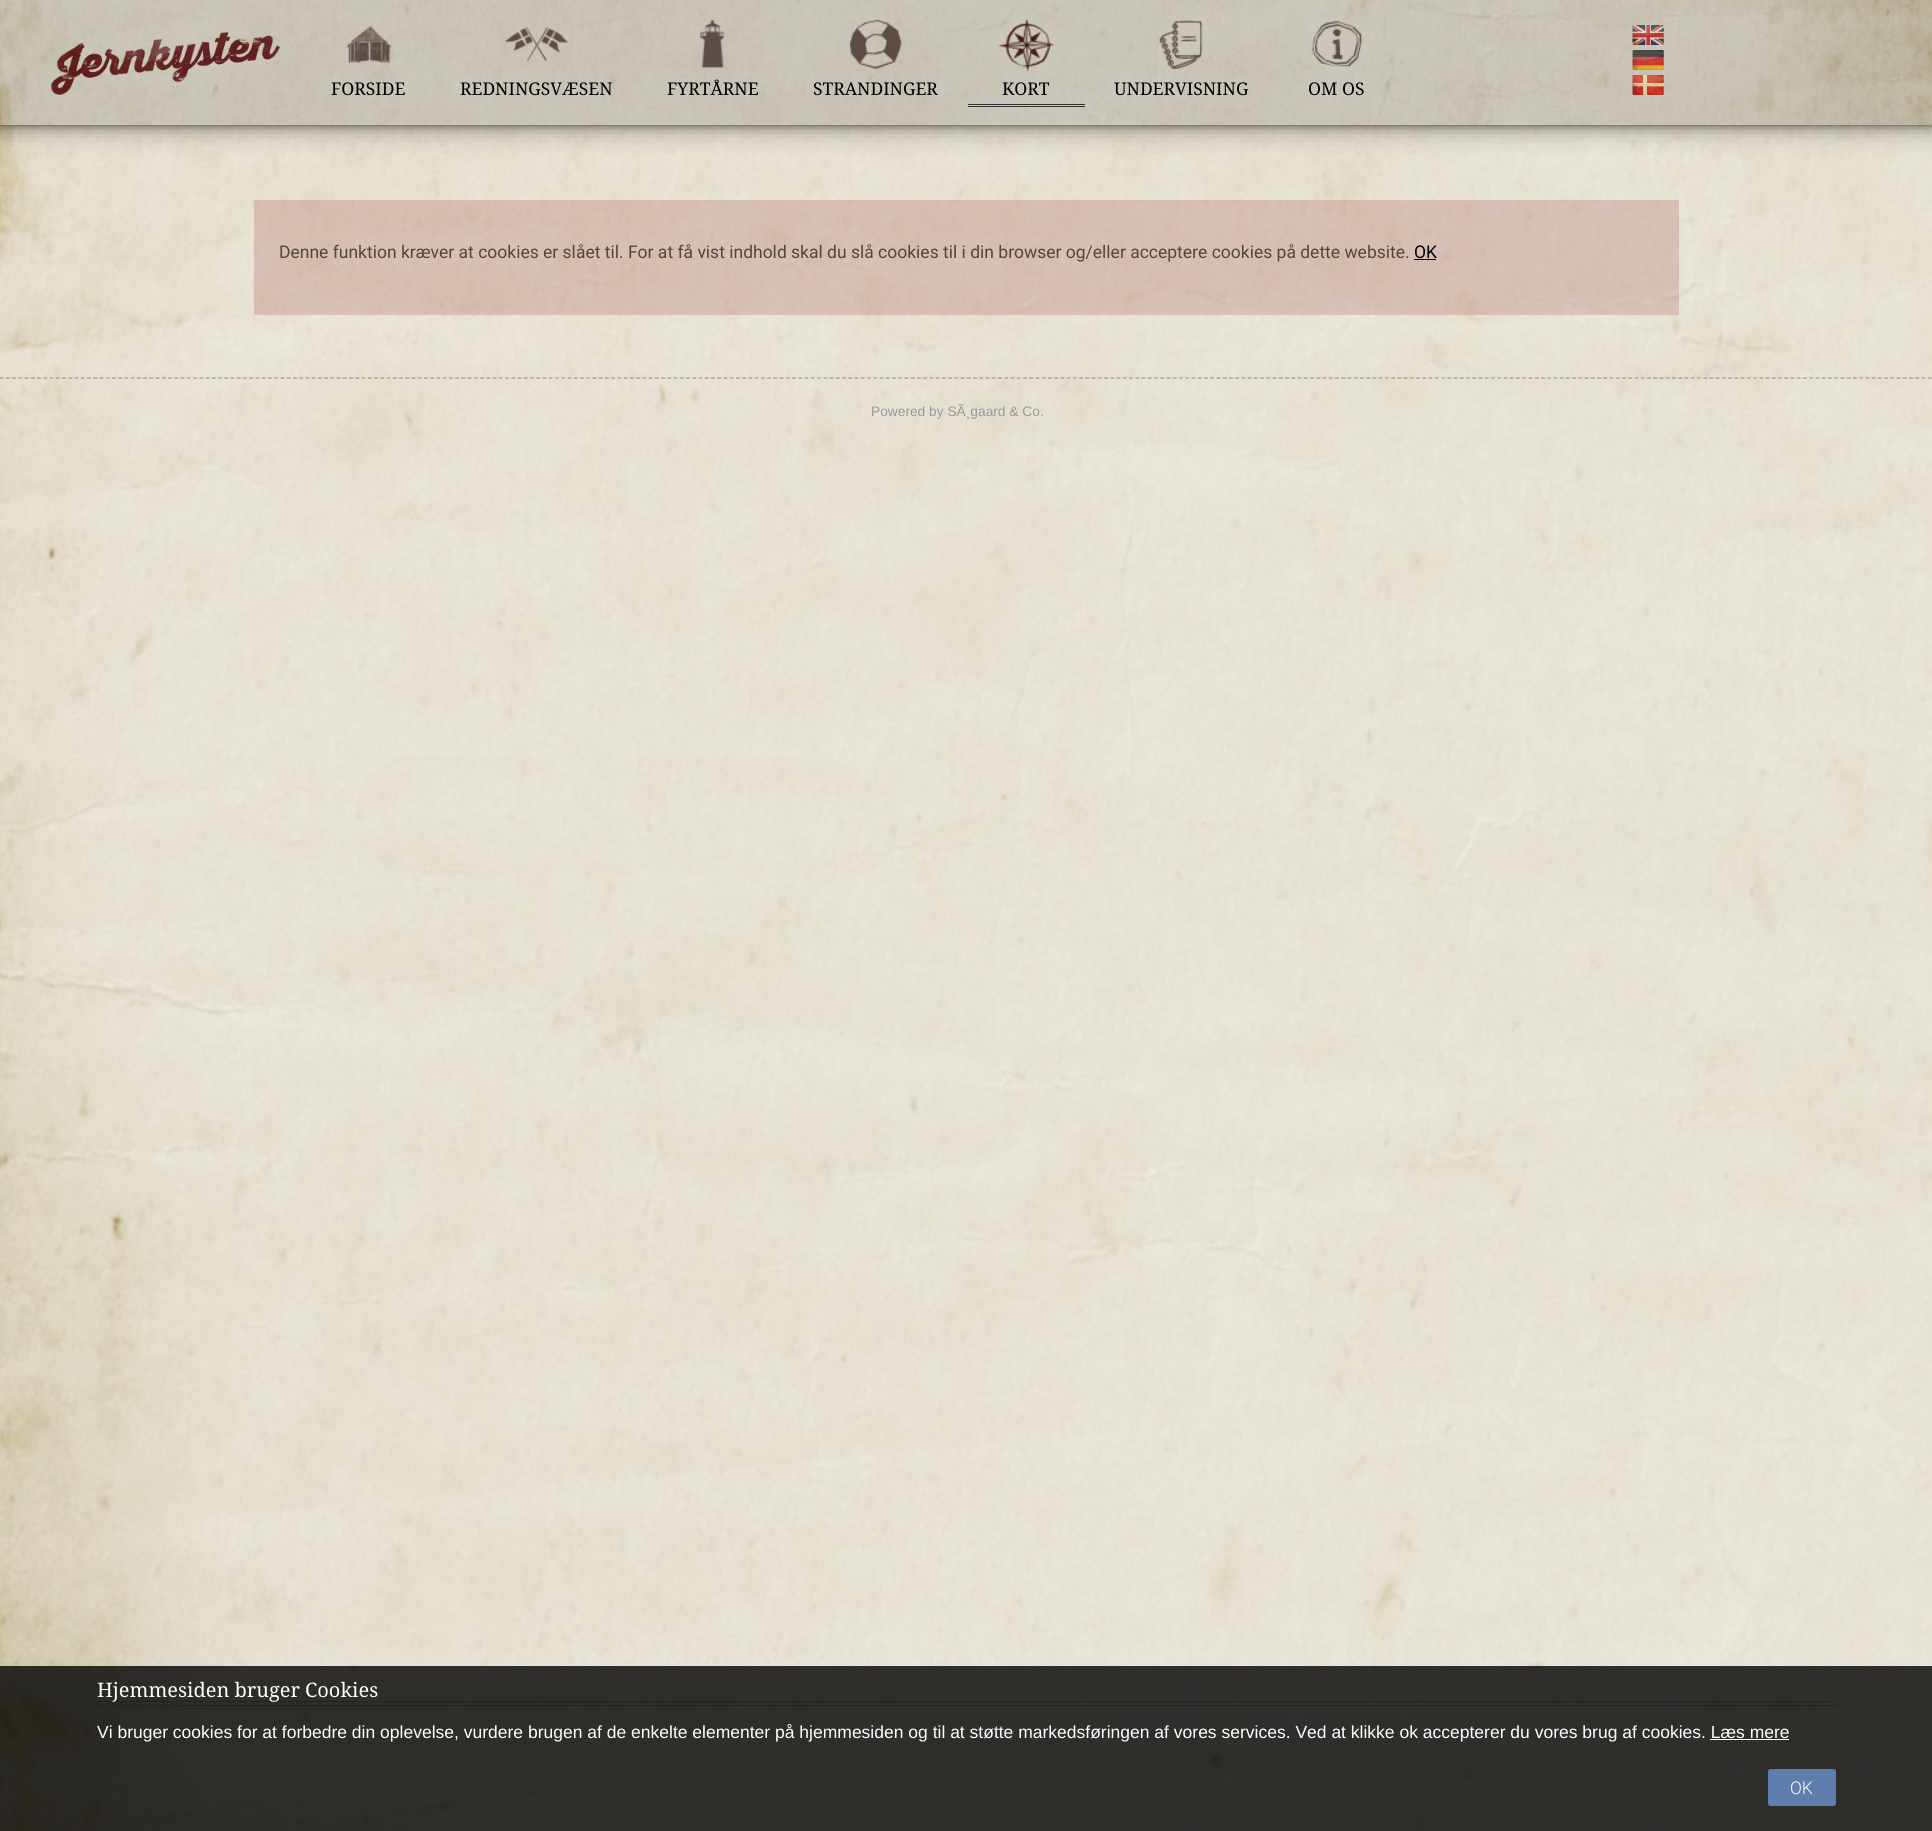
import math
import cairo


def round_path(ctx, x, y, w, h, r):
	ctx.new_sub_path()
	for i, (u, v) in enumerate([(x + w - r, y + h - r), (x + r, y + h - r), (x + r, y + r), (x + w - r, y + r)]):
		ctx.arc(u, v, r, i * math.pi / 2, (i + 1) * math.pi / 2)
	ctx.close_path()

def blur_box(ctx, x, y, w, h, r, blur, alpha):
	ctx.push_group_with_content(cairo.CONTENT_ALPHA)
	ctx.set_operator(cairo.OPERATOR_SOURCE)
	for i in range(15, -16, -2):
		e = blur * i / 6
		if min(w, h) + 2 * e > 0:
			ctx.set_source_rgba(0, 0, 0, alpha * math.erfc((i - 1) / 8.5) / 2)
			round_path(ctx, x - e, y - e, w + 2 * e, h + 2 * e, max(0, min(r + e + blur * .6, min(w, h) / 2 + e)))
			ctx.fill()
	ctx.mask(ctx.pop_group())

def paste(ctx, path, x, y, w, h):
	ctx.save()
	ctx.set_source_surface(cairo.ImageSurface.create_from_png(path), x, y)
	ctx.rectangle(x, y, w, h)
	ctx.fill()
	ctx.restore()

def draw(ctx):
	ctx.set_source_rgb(1, 1, 1)
	ctx.paint()
	paste(ctx, 'media/13.png', 0, 125, 1932, 1706)
	ctx.set_source_rgb(0, 0, 0)
	blur_box(ctx, -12, 0, 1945, 125, 0, 4, 0.53)
	blur_box(ctx, -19, 3, 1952, 125, 0, 12.5, 0.39)
	paste(ctx, 'media/1.png', 0, 0, 1932, 125)
	paste(ctx, 'media/2.png', 50, 31, 230, 64)
	paste(ctx, 'media/3.png', 347, 26, 45, 37)
	ctx.select_font_face('Droid Serif')
	ctx.set_font_size(17.5)
	ctx.set_source_rgb(0, 0, 0)
	ctx.move_to(331, 95)
	ctx.show_text('FORSIDE')
	paste(ctx, 'media/4.png', 505, 26, 63, 36)
	ctx.move_to(460, 95)
	ctx.show_text('REDNINGSVÆSEN')
	paste(ctx, 'media/5.png', 699, 19, 25, 49)
	ctx.move_to(667, 95)
	ctx.show_text('FYRTÅRNE')
	paste(ctx, 'media/6.png', 849, 19, 53, 50)
	ctx.move_to(813, 95)
	ctx.show_text('STRANDINGER')
	ctx.set_source_rgb(0.2, 0.2, 0.2)
	ctx.rectangle(968, 104, 117, 1)
	ctx.fill()
	ctx.rectangle(968, 106, 117, 1)
	ctx.fill()
	paste(ctx, 'media/7.png', 998, 18, 56, 54)
	ctx.set_source_rgb(0, 0, 0)
	ctx.move_to(1002, 95)
	ctx.show_text('KORT')
	paste(ctx, 'media/8.png', 1158, 20, 45, 49)
	ctx.move_to(1114, 95)
	ctx.show_text('UNDERVISNING')
	paste(ctx, 'media/9.png', 1312, 21, 50, 46)
	ctx.move_to(1308, 95)
	ctx.show_text('OM OS')
	paste(ctx, 'media/10.png', 1632, 25, 32, 20)
	paste(ctx, 'media/11.png', 1632, 50, 32, 20)
	paste(ctx, 'media/12.png', 1632, 75, 32, 20)
	ctx.set_source_rgba(0.588, 0.196, 0.196, 0.2)
	ctx.rectangle(254, 200, 1425, 115)
	ctx.fill()
	ctx.select_font_face('Roboto')
	ctx.set_source_rgb(0.322, 0.278, 0.231)
	ctx.move_to(279, 258)
	ctx.show_text('Denne funktion kræver at cookies er slået til. For at få vist indhold skal du slå cookies til i din browser og/eller acceptere cookies på dette website.')
	ctx.set_source_rgb(0, 0, 0)
	ctx.move_to(1414, 258)
	ctx.show_text('OK')
	ctx.rectangle(1414, 259, 22, 1)
	ctx.fill()
	ctx.new_path()
	ctx.move_to(-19, 378)
	ctx.line_to(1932.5, 378)
	ctx.set_source_rgb(0.6, 0.6, 0.6)
	ctx.set_line_width(1.2)
	ctx.set_dash([3.75, 2.49])
	ctx.stroke()
	ctx.select_font_face('Liberation Sans')
	ctx.set_font_size(13.75)
	ctx.move_to(871, 416)
	ctx.show_text('Powered by SÃ¸gaard & Co.')
	ctx.set_source_rgba(0, 0, 0, 0.8)
	ctx.rectangle(0, 1666, 1932, 165)
	ctx.fill()
	ctx.set_source_rgb(0.133, 0.133, 0.133)
	ctx.rectangle(96, 1701, 1740, 1)
	ctx.rectangle(96, 1705, 1740, 1)
	ctx.fill()
	ctx.select_font_face('Droid Serif')
	ctx.set_font_size(20)
	ctx.set_source_rgb(1, 1, 1)
	ctx.move_to(97, 1697)
	ctx.show_text('Hjemmesiden bruger Cookies')
	ctx.select_font_face('Liberation Sans')
	ctx.set_font_size(17.5)
	ctx.move_to(97, 1738)
	ctx.show_text('Vi bruger cookies for at forbedre din oplevelse, vurdere brugen af de enkelte elementer på hjemmesiden og til at støtte markedsføringen af vores services. Ved at klikke ok accepterer du vores brug af cookies. Læs mere')
	ctx.rectangle(1710, 1739, 79, 1)
	ctx.fill()
	ctx.set_source_rgb(0.369, 0.494, 0.678)
	round_path(ctx, 1768, 1769, 68, 37, 2.5)
	ctx.fill()
	ctx.select_font_face('Roboto Light')
	ctx.set_source_rgb(1, 1, 1)
	ctx.move_to(1790, 1794)
	ctx.show_text('OK')


surface = cairo.ImageSurface(cairo.FORMAT_RGB24, 1932, 1831)
ctx = cairo.Context(surface)
options = cairo.FontOptions()
options.set_hint_metrics(cairo.HINT_METRICS_OFF)
options.set_hint_style(cairo.HINT_STYLE_NONE)
ctx.set_font_options(options)
ctx.set_miter_limit(4)
draw(ctx)
surface.write_to_png('image.png')
